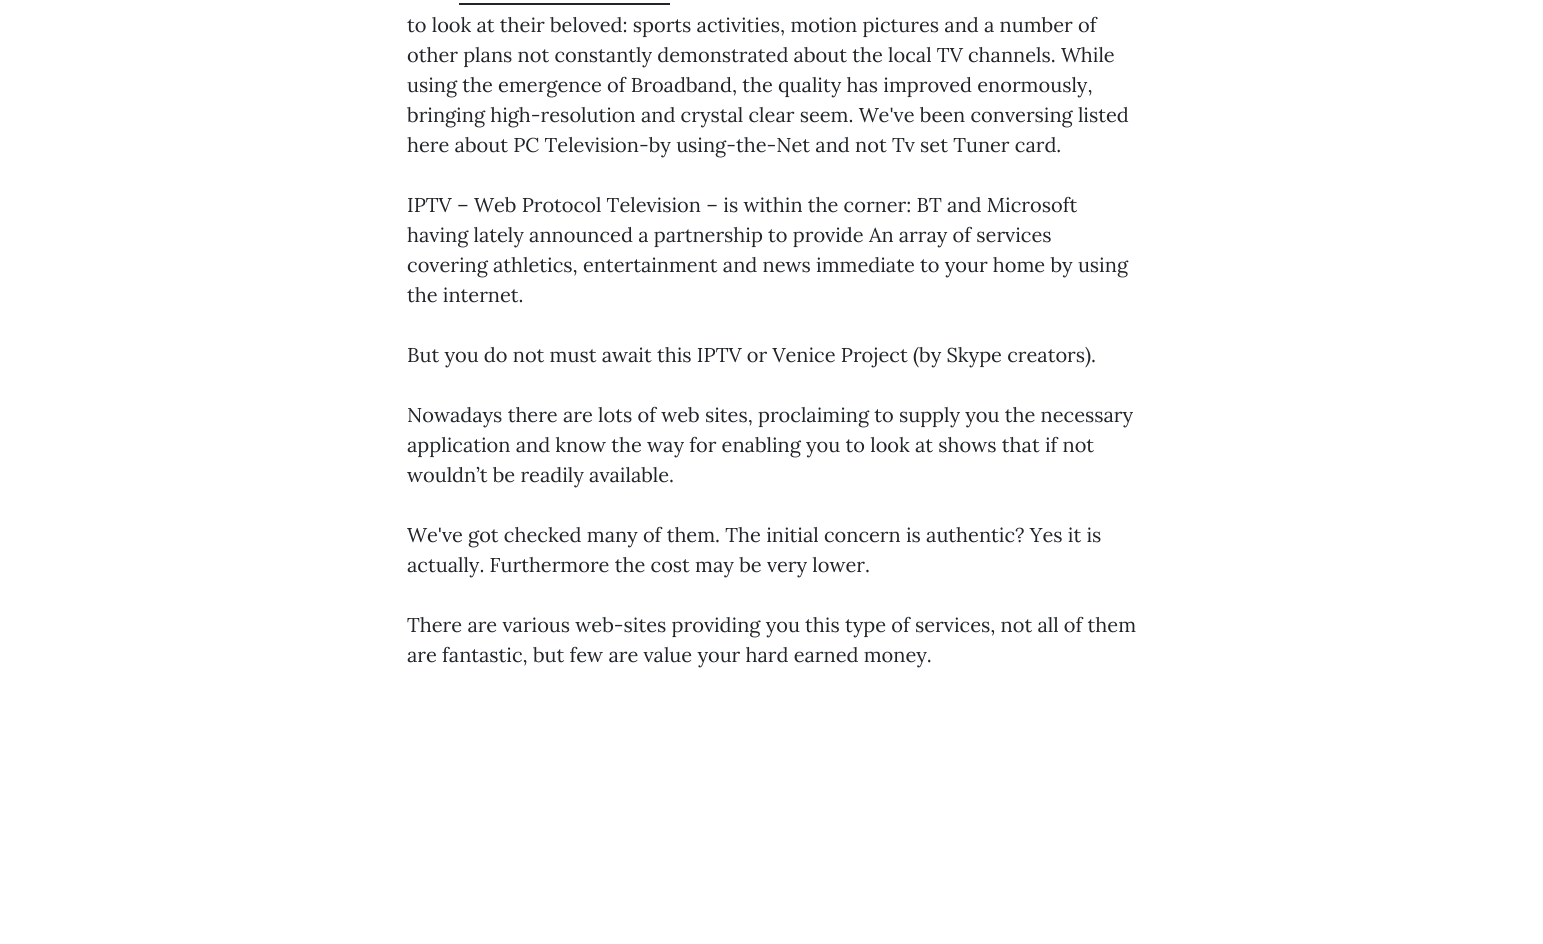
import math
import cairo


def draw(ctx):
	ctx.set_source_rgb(1, 1, 1)
	ctx.paint()
	ctx.set_source_rgb(0.129, 0.145, 0.161)
	ctx.rectangle(459, 3, 211, 2)
	ctx.fill()
	ctx.select_font_face('Lora')
	ctx.set_font_size(20)
	for x, y, s in [
		(407, 32, 'to look at their beloved: sports activities, motion pictures and a number of'),
		(407, 62, 'other plans not constantly demonstrated about the local TV channels. While'),
		(407, 92, 'using the emergence of Broadband, the quality has improved enormously,'),
		(407, 122, 'bringing high-resolution and crystal clear seem. We\'ve been conversing listed'),
		(407, 152, 'here about PC Television-by using-the-Net and not Tv set Tuner card.'),
		(407, 212, 'IPTV – Web Protocol Television – is within the corner: BT and Microsoft'),
		(407, 242, 'having lately announced a partnership to provide An array of services'),
		(407, 272, 'covering athletics, entertainment and news immediate to your home by using'),
		(407, 302, 'the internet.'),
		(407, 362, 'But you do not must await this IPTV or Venice Project (by Skype creators).'),
		(407, 422, 'Nowadays there are lots of web sites, proclaiming to supply you the necessary'),
		(407, 452, 'application and know the way for enabling you to look at shows that if not'),
		(407, 482, 'wouldn’t be readily available.'),
		(407, 542, 'We\'ve got checked many of them. The initial concern is authentic? Yes it is'),
		(407, 572, 'actually. Furthermore the cost may be very lower.'),
		(407, 632, 'There are various web-sites providing you this type of services, not all of them'),
		(407, 662, 'are fantastic, but few are value your hard earned money.'),
	]:
		ctx.move_to(x, y)
		ctx.show_text(s)


surface = cairo.ImageSurface(cairo.FORMAT_RGB24, 1543, 944)
ctx = cairo.Context(surface)
options = cairo.FontOptions()
options.set_hint_metrics(cairo.HINT_METRICS_OFF)
options.set_hint_style(cairo.HINT_STYLE_NONE)
ctx.set_font_options(options)
ctx.set_miter_limit(4)
draw(ctx)
surface.write_to_png('image.png')
